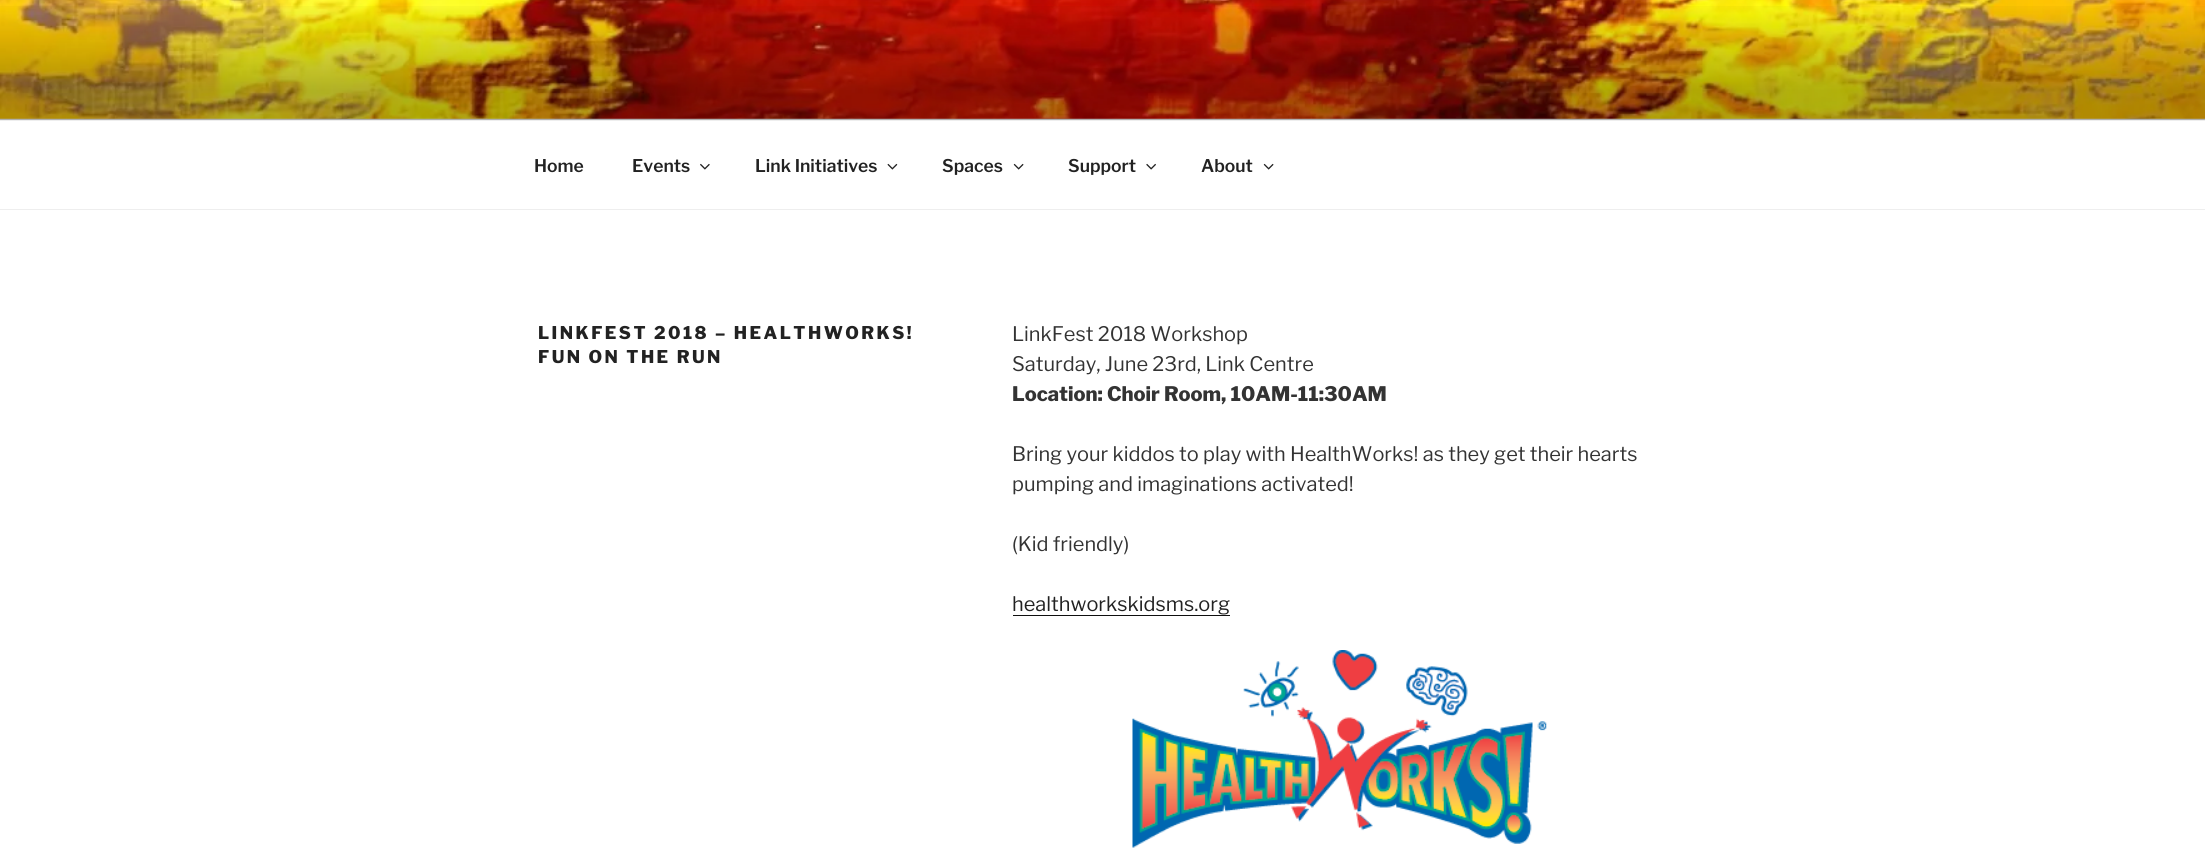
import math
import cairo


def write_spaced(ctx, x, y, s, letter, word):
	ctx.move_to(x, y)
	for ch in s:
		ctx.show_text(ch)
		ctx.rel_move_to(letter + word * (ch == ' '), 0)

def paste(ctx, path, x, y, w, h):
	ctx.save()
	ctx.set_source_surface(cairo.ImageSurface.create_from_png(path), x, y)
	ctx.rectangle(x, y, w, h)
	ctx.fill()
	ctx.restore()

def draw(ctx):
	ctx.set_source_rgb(1, 1, 1)
	ctx.paint()
	ctx.set_source_rgb(0.98, 0.98, 0.98)
	ctx.rectangle(0, 118, 2205, 2)
	ctx.fill()
	paste(ctx, 'media/1.png', 0, 0, 2205, 119)
	gradient = cairo.LinearGradient(1103, 0, 1103, 120)
	gradient.add_color_stop_rgba(0, 0, 0, 0, 0)
	gradient.add_color_stop_rgba(0.75, 0, 0, 0, 0.3)
	gradient.add_color_stop_rgba(1, 0, 0, 0, 0.3)
	ctx.set_source(gradient)
	ctx.rectangle(0, 6, 2205, 114)
	ctx.fill()
	ctx.set_source_rgb(0.933, 0.933, 0.933)
	ctx.rectangle(0, 120, 2205, 1)
	ctx.fill()
	ctx.rectangle(0, 209, 2205, 1)
	ctx.fill()
	ctx.select_font_face('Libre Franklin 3 Thin')
	ctx.set_font_size(17.5)
	ctx.set_source_rgb(0.133, 0.133, 0.133)
	ctx.move_to(534, 172)
	ctx.show_text('Home')
	ctx.move_to(632, 172)
	ctx.show_text('Events')
	paste(ctx, 'media/2.png', 700, 163, 10, 7)
	ctx.move_to(755, 172)
	ctx.show_text('Link Initiatives')
	paste(ctx, 'media/3.png', 887, 163, 11, 7)
	ctx.move_to(942, 172)
	ctx.show_text('Spaces')
	paste(ctx, 'media/4.png', 1013, 163, 11, 7)
	ctx.move_to(1068, 172)
	ctx.show_text('Support')
	paste(ctx, 'media/5.png', 1146, 163, 10, 7)
	ctx.move_to(1201, 172)
	ctx.show_text('About')
	paste(ctx, 'media/4.png', 1263, 163, 11, 7)
	ctx.select_font_face('Libre Franklin Thin')
	write_spaced(ctx, 538, 339, 'LINKFEST 2018 – HEALTHWORKS!', 2.45, 0)
	write_spaced(ctx, 538, 363, 'FUN ON THE RUN', 2.45, 0)
	ctx.select_font_face('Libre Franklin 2 Thin')
	ctx.set_font_size(20)
	ctx.set_source_rgb(0.2, 0.2, 0.2)
	ctx.move_to(1012, 341)
	ctx.show_text('LinkFest 2018 Workshop')
	ctx.move_to(1012, 371)
	ctx.show_text('Saturday, June 23rd, Link Centre')
	ctx.select_font_face('Libre Franklin Thin')
	ctx.move_to(1012, 401)
	ctx.show_text('Location: Choir Room, 10AM-11:30AM')
	ctx.select_font_face('Libre Franklin 2 Thin')
	for x, y, s in [
		(1012, 461, 'Bring your kiddos to play with HealthWorks! as they get their hearts'),
		(1012, 491, 'pumping and imaginations activated!'),
		(1012, 551, '(Kid friendly)'),
	]:
		ctx.move_to(x, y)
		ctx.show_text(s)
	ctx.set_source_rgb(0.133, 0.133, 0.133)
	ctx.move_to(1012, 611)
	ctx.show_text('healthworkskidsms.org')
	ctx.set_source_rgb(0.059, 0.059, 0.059)
	ctx.rectangle(1013, 615, 217, 1)
	ctx.fill()
	paste(ctx, 'media/6.png', 1132, 650, 415, 198)


surface = cairo.ImageSurface(cairo.FORMAT_RGB24, 2205, 857)
ctx = cairo.Context(surface)
options = cairo.FontOptions()
options.set_hint_metrics(cairo.HINT_METRICS_OFF)
options.set_hint_style(cairo.HINT_STYLE_NONE)
ctx.set_font_options(options)
ctx.set_miter_limit(4)
draw(ctx)
surface.write_to_png('image.png')
